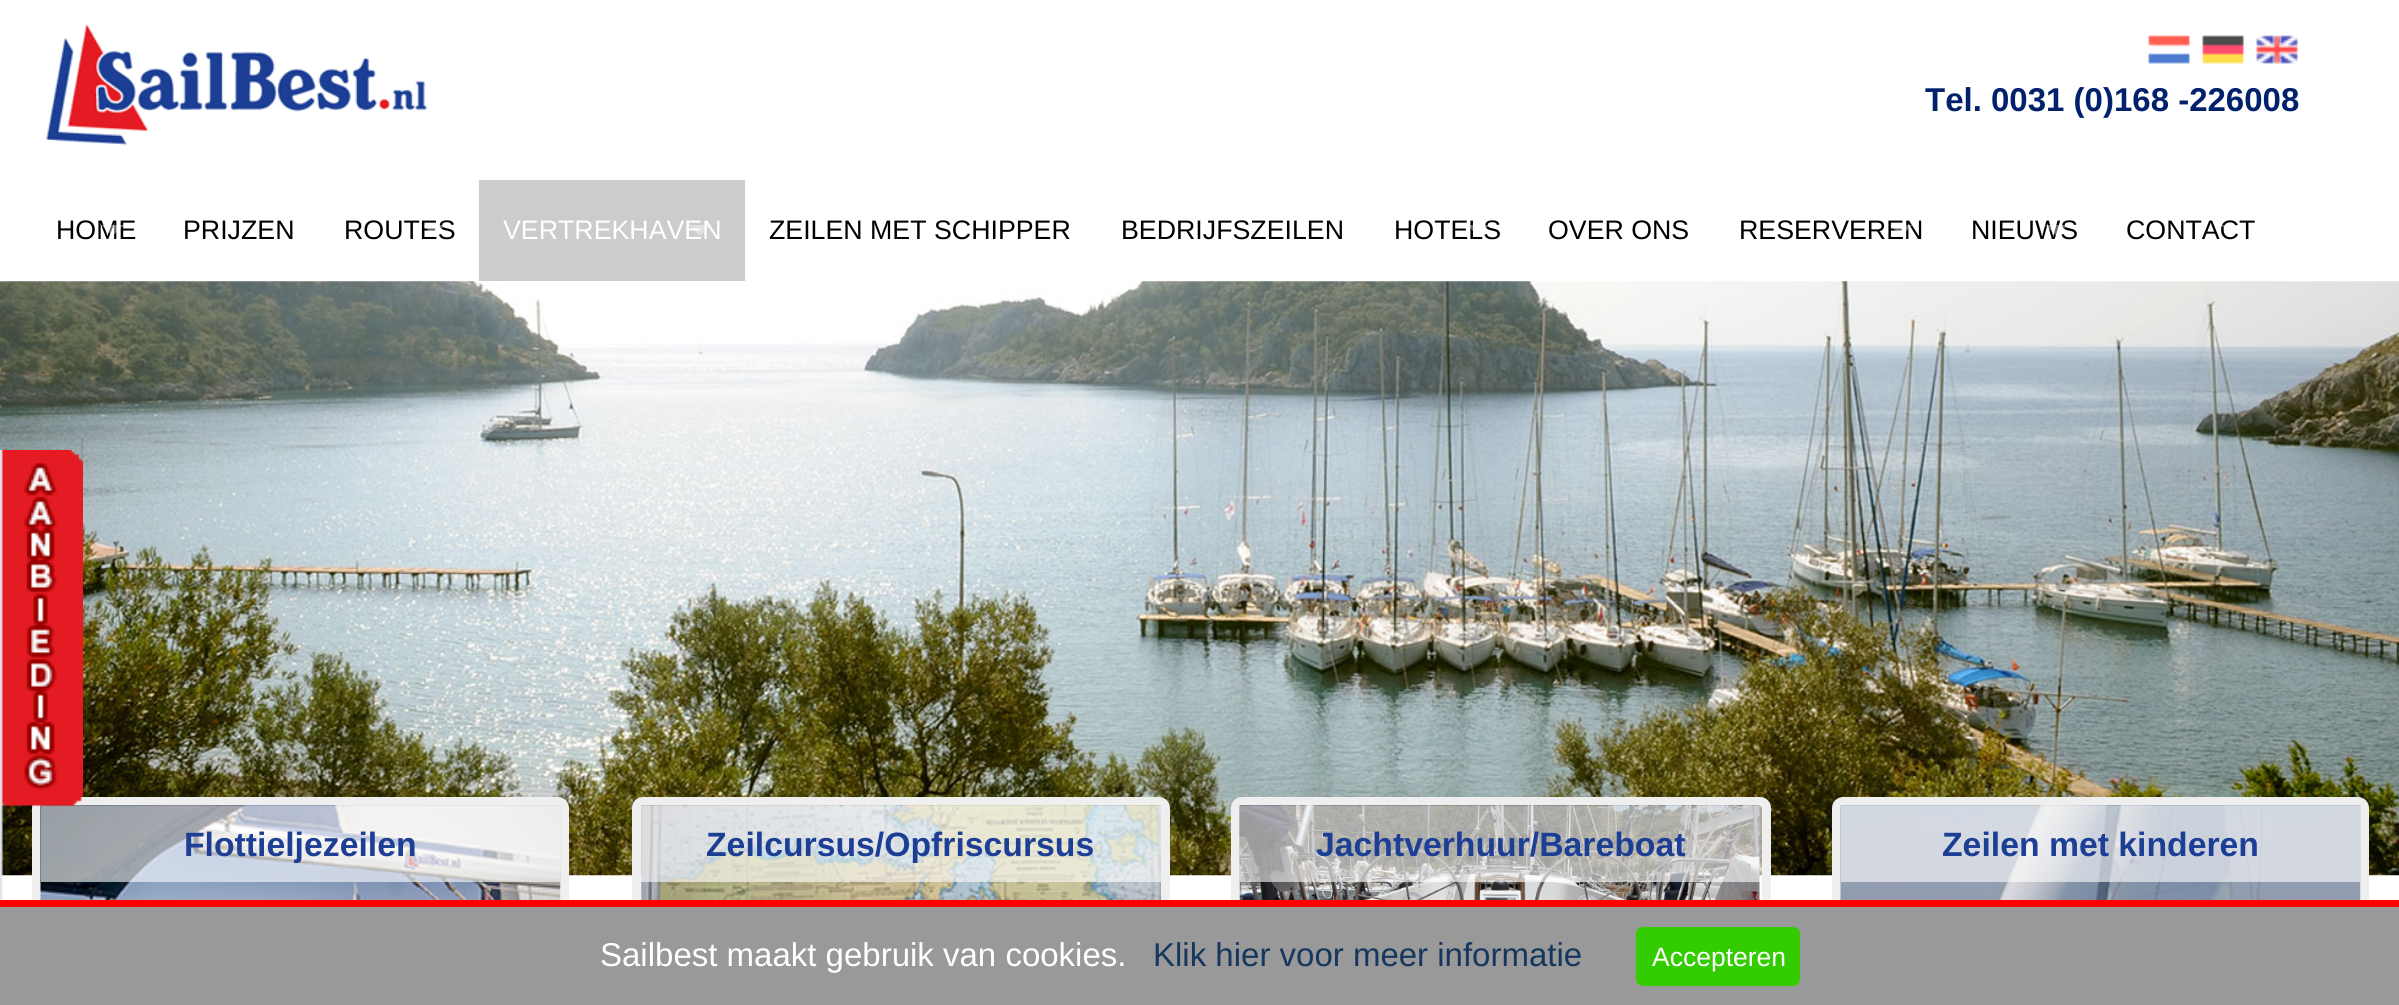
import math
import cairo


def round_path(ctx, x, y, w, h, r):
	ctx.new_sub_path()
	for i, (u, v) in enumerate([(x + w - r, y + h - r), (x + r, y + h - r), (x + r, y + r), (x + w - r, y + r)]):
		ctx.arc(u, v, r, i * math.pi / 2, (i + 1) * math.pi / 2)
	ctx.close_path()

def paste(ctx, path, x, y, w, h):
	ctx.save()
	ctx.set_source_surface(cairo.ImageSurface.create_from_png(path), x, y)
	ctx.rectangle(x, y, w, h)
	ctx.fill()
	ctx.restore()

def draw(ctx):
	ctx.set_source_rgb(1, 1, 1)
	ctx.paint()
	paste(ctx, 'media/1.png', 46, 24, 382, 122)
	paste(ctx, 'media/2.png', 2148, 35, 42, 29)
	paste(ctx, 'media/3.png', 2202, 35, 42, 29)
	paste(ctx, 'media/4.png', 2256, 35, 42, 29)
	ctx.select_font_face('Liberation Sans', cairo.FONT_SLANT_NORMAL, cairo.FONT_WEIGHT_BOLD)
	ctx.set_font_size(33)
	ctx.set_source_rgb(0.004, 0.129, 0.424)
	ctx.move_to(1925, 111)
	ctx.show_text('Tel. 0031 (0)168 -226008')
	ctx.select_font_face('Liberation Sans')
	ctx.set_font_size(26.75)
	ctx.set_source_rgb(0, 0, 0)
	ctx.move_to(56, 239)
	ctx.show_text('HOME')
	ctx.set_source_rgba(1, 1, 1, 0.4)
	ctx.new_path()
	ctx.move_to(101, 225)
	ctx.line_to(124, 225)
	ctx.line_to(112.5, 236)
	ctx.close_path()
	ctx.fill()
	ctx.set_source_rgb(0, 0, 0)
	ctx.move_to(183, 239)
	ctx.show_text('PRIJZEN')
	ctx.move_to(344, 239)
	ctx.show_text('ROUTES')
	ctx.set_source_rgba(1, 1, 1, 0.4)
	ctx.new_path()
	ctx.move_to(423, 225)
	ctx.line_to(445.5, 225)
	ctx.line_to(434, 236)
	ctx.close_path()
	ctx.fill()
	ctx.set_source_rgb(0.8, 0.8, 0.8)
	ctx.rectangle(479, 180, 266, 101)
	ctx.fill()
	ctx.set_source_rgb(1, 1, 1)
	ctx.move_to(503, 239)
	ctx.show_text('VERTREKHAVEN')
	ctx.set_source_rgba(1, 1, 1, 0.4)
	ctx.new_path()
	ctx.move_to(688.5, 225)
	ctx.line_to(711, 225)
	ctx.line_to(700, 236)
	ctx.close_path()
	ctx.fill()
	ctx.set_source_rgb(0, 0, 0)
	for x, y, s in [
		(769, 239, 'ZEILEN MET SCHIPPER'),
		(1121, 239, 'BEDRIJFSZEILEN'),
		(1394, 239, 'HOTELS'),
	]:
		ctx.move_to(x, y)
		ctx.show_text(s)
	ctx.set_source_rgba(1, 1, 1, 0.4)
	ctx.new_path()
	ctx.move_to(1467, 225)
	ctx.line_to(1489.5, 225)
	ctx.line_to(1478, 236)
	ctx.close_path()
	ctx.fill()
	ctx.set_source_rgb(0, 0, 0)
	ctx.move_to(1548, 239)
	ctx.show_text('OVER ONS')
	ctx.move_to(1739, 239)
	ctx.show_text('RESERVEREN')
	ctx.set_source_rgba(1, 1, 1, 0.4)
	ctx.new_path()
	ctx.move_to(1890, 225)
	ctx.line_to(1912.5, 225)
	ctx.line_to(1901, 236)
	ctx.close_path()
	ctx.fill()
	ctx.set_source_rgb(0, 0, 0)
	ctx.move_to(1971, 239)
	ctx.show_text('NIEUWS')
	ctx.set_source_rgba(1, 1, 1, 0.4)
	ctx.new_path()
	ctx.move_to(2045, 225)
	ctx.line_to(2068, 225)
	ctx.line_to(2056.5, 236)
	ctx.close_path()
	ctx.fill()
	ctx.set_source_rgb(0, 0, 0)
	ctx.move_to(2126, 239)
	ctx.show_text('CONTACT')
	ctx.set_source_rgba(1, 1, 1, 0.4)
	ctx.new_path()
	ctx.move_to(2221, 225)
	ctx.line_to(2243, 225)
	ctx.line_to(2232, 236)
	ctx.close_path()
	ctx.fill()
	paste(ctx, 'media/5.png', 0, 281, 2399, 595)
	round_path(ctx, 36.5, 801.5, 528, 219, 6.5)
	ctx.set_source_rgb(0.937, 0.937, 0.937)
	ctx.set_line_width(9)
	ctx.stroke()
	paste(ctx, 'media/7.png', 40, 805, 521, 95)
	ctx.set_source_rgba(1, 1, 1, 0.6)
	ctx.rectangle(41, 806, 519, 76)
	ctx.fill()
	paste(ctx, 'media/6.png', 0, 450, 83, 450)
	ctx.select_font_face('Liberation Sans', cairo.FONT_SLANT_NORMAL, cairo.FONT_WEIGHT_BOLD)
	ctx.set_font_size(33.75)
	ctx.set_source_rgb(0.11, 0.243, 0.584)
	ctx.move_to(184, 856)
	ctx.show_text('Flottieljezeilen')
	round_path(ctx, 636.5, 801.5, 529, 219, 6.5)
	ctx.set_source_rgb(0.937, 0.937, 0.937)
	ctx.stroke()
	paste(ctx, 'media/8.png', 641, 805, 520, 95)
	ctx.set_source_rgba(1, 1, 1, 0.6)
	ctx.rectangle(641, 806, 520, 76)
	ctx.fill()
	ctx.set_source_rgb(0.11, 0.243, 0.584)
	ctx.move_to(706, 856)
	ctx.show_text('Zeilcursus/Opfriscursus')
	round_path(ctx, 1235.5, 801.5, 531, 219, 6.5)
	ctx.set_source_rgb(0.937, 0.937, 0.937)
	ctx.stroke()
	paste(ctx, 'media/9.png', 1239, 805, 521, 95)
	ctx.set_source_rgba(1, 1, 1, 0.6)
	ctx.rectangle(1240, 806, 522, 76)
	ctx.fill()
	ctx.set_source_rgb(0.11, 0.243, 0.584)
	ctx.move_to(1316, 856)
	ctx.show_text('Jachtverhuur/Bareboat')
	round_path(ctx, 1836.5, 801.5, 528, 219, 6.5)
	ctx.set_source_rgb(0.937, 0.937, 0.937)
	ctx.stroke()
	paste(ctx, 'media/10.png', 1840, 805, 521, 95)
	ctx.set_source_rgba(1, 1, 1, 0.6)
	ctx.rectangle(1841, 806, 519, 76)
	ctx.fill()
	ctx.set_source_rgb(0.11, 0.243, 0.584)
	ctx.move_to(1942, 856)
	ctx.show_text('Zeilen met kinderen')
	ctx.set_source_rgb(0.6, 0.6, 0.6)
	ctx.rectangle(0, 907, 2399, 98)
	ctx.fill()
	ctx.set_source_rgb(1, 0, 0)
	ctx.rectangle(0, 900, 2399, 7)
	ctx.fill()
	ctx.select_font_face('Liberation Sans')
	ctx.set_font_size(33)
	ctx.set_source_rgb(1, 1, 1)
	ctx.move_to(600, 966)
	ctx.show_text('Sailbest maakt gebruik van cookies.')
	ctx.set_source_rgb(0.082, 0.212, 0.373)
	ctx.move_to(1153, 966)
	ctx.show_text('Klik hier voor meer informatie')
	ctx.set_source_rgb(0.2, 0.8, 0)
	round_path(ctx, 1636, 927, 164, 59, 7)
	ctx.fill()
	ctx.set_font_size(26.5)
	ctx.set_source_rgb(1, 1, 1)
	ctx.move_to(1652, 966)
	ctx.show_text('Accepteren')


surface = cairo.ImageSurface(cairo.FORMAT_RGB24, 2399, 1005)
ctx = cairo.Context(surface)
options = cairo.FontOptions()
options.set_hint_metrics(cairo.HINT_METRICS_OFF)
options.set_hint_style(cairo.HINT_STYLE_NONE)
ctx.set_font_options(options)
ctx.set_miter_limit(4)
draw(ctx)
surface.write_to_png('image.png')
